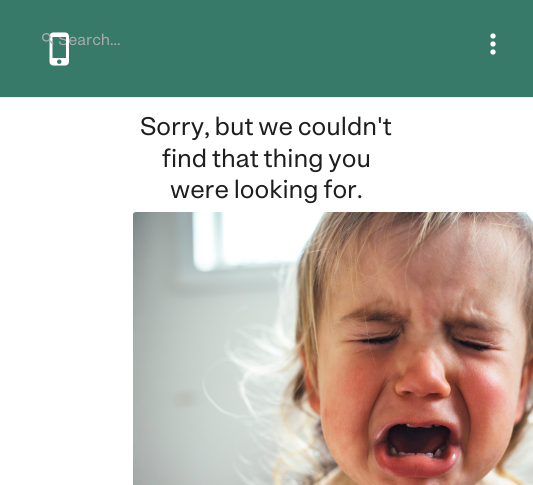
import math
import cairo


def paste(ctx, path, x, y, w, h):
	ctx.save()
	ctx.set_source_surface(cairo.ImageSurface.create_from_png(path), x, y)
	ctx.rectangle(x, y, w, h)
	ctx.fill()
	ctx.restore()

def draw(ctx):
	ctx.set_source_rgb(1, 1, 1)
	ctx.paint()
	ctx.set_source_rgb(0.216, 0.478, 0.412)
	ctx.rectangle(0, 0, 533, 97)
	ctx.fill()
	ctx.set_source_rgb(0.914, 0.929, 0.945)
	ctx.rectangle(0, 97, 533, 1)
	ctx.fill()
	ctx.select_font_face('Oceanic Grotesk')
	ctx.set_font_size(16)
	ctx.set_source_rgb(0.667, 0.667, 0.667)
	ctx.move_to(58, 45)
	ctx.show_text('Search...')
	paste(ctx, 'media/1.png', 49, 32, 20, 34)
	paste(ctx, 'media/2.png', 42, 33, 12, 12)
	paste(ctx, 'media/3.png', 490, 33, 6, 22)
	ctx.set_font_size(25.5)
	ctx.set_source_rgb(0.118, 0.118, 0.118)
	for x, y, s in [
		(140, 135, 'Sorry, but we couldn\'t'),
		(162, 167, 'find that thing you'),
		(170, 198, 'were looking for.'),
	]:
		ctx.move_to(x, y)
		ctx.show_text(s)
	paste(ctx, 'media/4.png', 133, 212, 400, 273)


surface = cairo.ImageSurface(cairo.FORMAT_RGB24, 533, 485)
ctx = cairo.Context(surface)
options = cairo.FontOptions()
options.set_hint_metrics(cairo.HINT_METRICS_OFF)
options.set_hint_style(cairo.HINT_STYLE_NONE)
ctx.set_font_options(options)
ctx.set_miter_limit(4)
draw(ctx)
surface.write_to_png('image.png')
